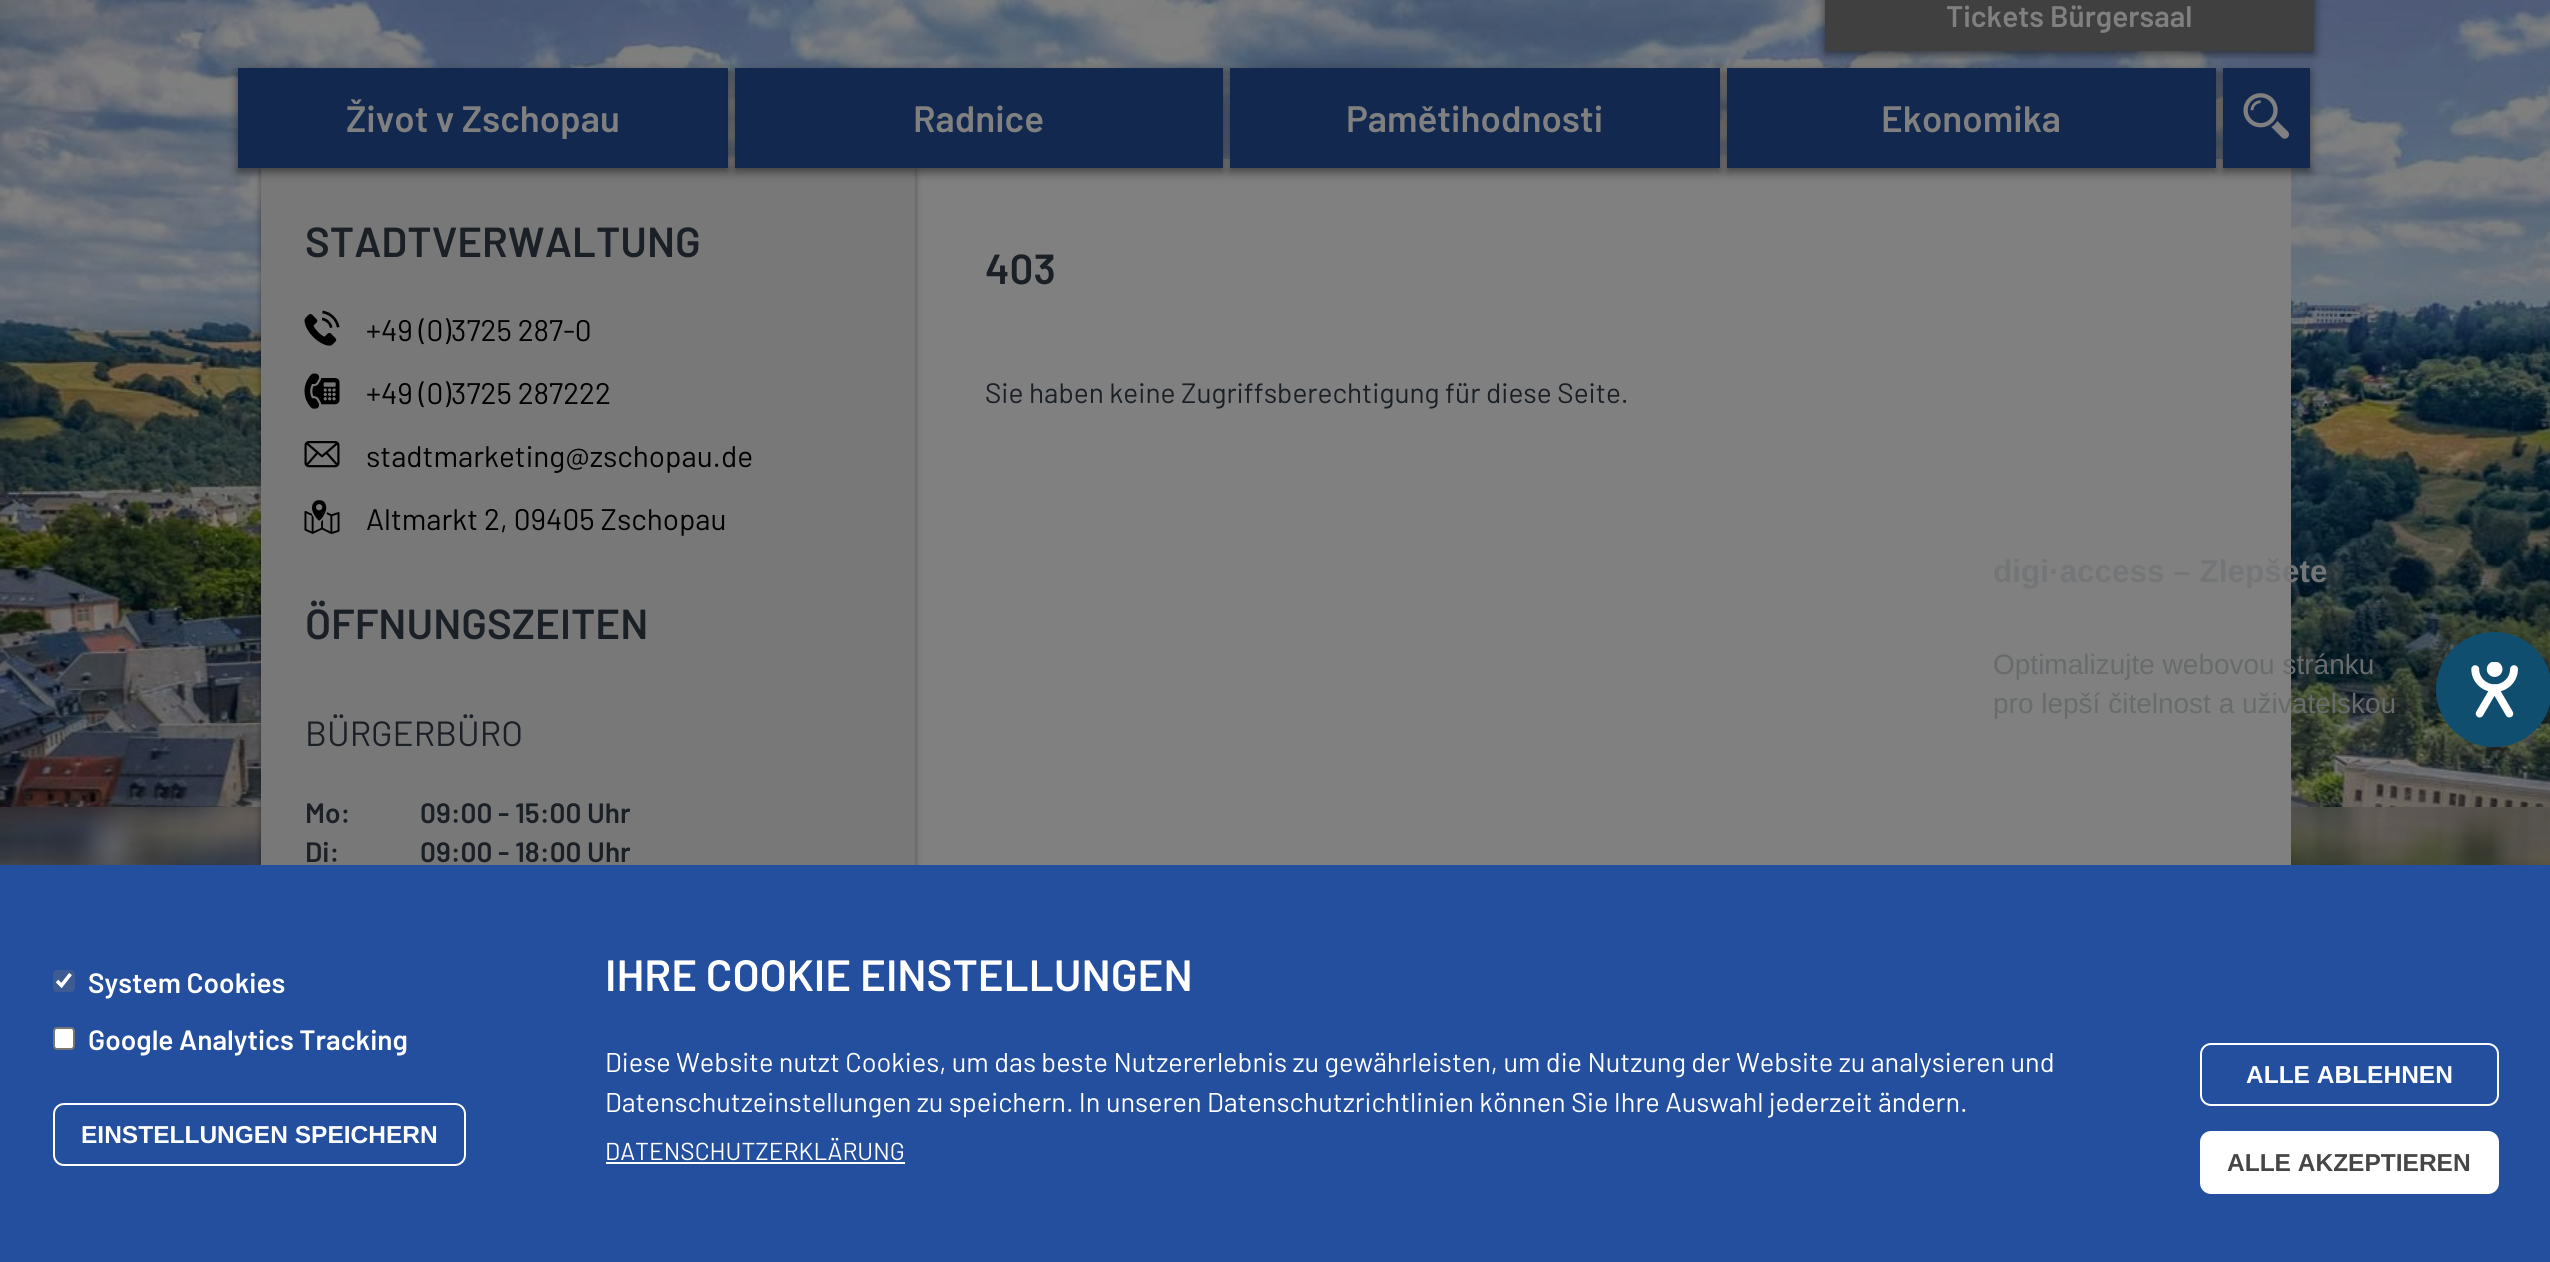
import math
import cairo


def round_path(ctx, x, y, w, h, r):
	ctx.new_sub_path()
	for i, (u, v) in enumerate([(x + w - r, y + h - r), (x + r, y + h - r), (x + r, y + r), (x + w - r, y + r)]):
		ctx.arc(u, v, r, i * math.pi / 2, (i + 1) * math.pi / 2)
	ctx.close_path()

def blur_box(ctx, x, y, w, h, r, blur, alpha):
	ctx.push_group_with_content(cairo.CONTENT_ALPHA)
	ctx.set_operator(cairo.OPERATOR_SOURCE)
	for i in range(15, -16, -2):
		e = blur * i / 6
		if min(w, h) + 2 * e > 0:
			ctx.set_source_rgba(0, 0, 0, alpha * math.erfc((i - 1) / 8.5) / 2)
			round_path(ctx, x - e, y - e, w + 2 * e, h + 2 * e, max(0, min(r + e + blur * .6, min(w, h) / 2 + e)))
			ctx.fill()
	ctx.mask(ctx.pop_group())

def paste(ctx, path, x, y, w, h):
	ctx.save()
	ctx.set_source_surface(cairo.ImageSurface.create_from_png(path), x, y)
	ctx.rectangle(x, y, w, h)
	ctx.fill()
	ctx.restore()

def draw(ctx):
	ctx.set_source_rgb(1, 1, 1)
	ctx.paint()
	paste(ctx, 'media/1.png', 0, 0, 2550, 807)
	paste(ctx, 'media/7.png', 0, 807, 2550, 58)
	ctx.set_source_rgb(0.502, 0.502, 0.502)
	ctx.rectangle(728, 159, 1563, 706)
	ctx.fill()
	ctx.set_source_rgb(0, 0, 0)
	blur_box(ctx, 261, 170, 654, 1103, 0, 3.5, 0.4)
	ctx.set_source_rgb(0.471, 0.471, 0.471)
	ctx.rectangle(261, 168, 654, 697)
	ctx.fill()
	ctx.set_source_rgb(0, 0, 0)
	blur_box(ctx, 238, 72, 490, 100, 0, 5, 0.5)
	ctx.set_source_rgb(0.071, 0.157, 0.31)
	ctx.rectangle(238, 68, 490, 100)
	ctx.fill()
	ctx.set_source_rgb(0, 0, 0)
	blur_box(ctx, 735, 72, 488, 100, 0, 5, 0.5)
	ctx.set_source_rgb(0.071, 0.157, 0.31)
	ctx.rectangle(735, 68, 488, 100)
	ctx.fill()
	ctx.set_source_rgb(0, 0, 0)
	blur_box(ctx, 1230, 72, 490, 100, 0, 5, 0.5)
	ctx.set_source_rgb(0.071, 0.157, 0.31)
	ctx.rectangle(1230, 68, 490, 100)
	ctx.fill()
	ctx.set_source_rgb(0, 0, 0)
	blur_box(ctx, 1727, 72, 489, 100, 0, 5, 0.5)
	ctx.set_source_rgb(0.071, 0.157, 0.31)
	ctx.rectangle(1727, 68, 489, 100)
	ctx.fill()
	ctx.set_source_rgb(0, 0, 0)
	blur_box(ctx, 2223, 72, 87, 100, 0, 5, 0.5)
	ctx.set_source_rgb(0.071, 0.157, 0.31)
	ctx.rectangle(2223, 68, 87, 100)
	ctx.fill()
	ctx.set_source_rgb(0, 0, 0)
	blur_box(ctx, 1825, -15, 489, 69, 0, 5, 0.5)
	ctx.set_source_rgb(0.251, 0.251, 0.251)
	ctx.rectangle(1825, 0, 489, 51)
	ctx.fill()
	ctx.select_font_face('Barlow SemiBold')
	ctx.set_font_size(29.75)
	ctx.set_source_rgb(0.502, 0.502, 0.502)
	ctx.move_to(1946, 27)
	ctx.show_text('Tickets Bürgersaal')
	ctx.set_font_size(36.75)
	for x, y, s in [
		(346, 132, 'Život v Zschopau'),
		(913, 132, 'Radnice'),
		(1346, 132, 'Pamětihodnosti'),
		(1881, 132, 'Ekonomika'),
	]:
		ctx.move_to(x, y)
		ctx.show_text(s)
	paste(ctx, 'media/2.png', 2243, 93, 46, 46)
	ctx.set_font_size(42)
	ctx.set_source_rgb(0.106, 0.125, 0.153)
	ctx.move_to(305, 257)
	ctx.show_text('STADTVERWALTUNG')
	paste(ctx, 'media/3.png', 304, 310, 36, 36)
	ctx.select_font_face('Barlow')
	ctx.set_font_size(29.75)
	ctx.set_source_rgb(0, 0, 0)
	ctx.move_to(366, 341)
	ctx.show_text('+49 (0)3725 287-0')
	paste(ctx, 'media/4.png', 304, 373, 36, 36)
	ctx.move_to(366, 404)
	ctx.show_text('+49 (0)3725 287222')
	paste(ctx, 'media/5.png', 304, 441, 36, 27)
	ctx.move_to(366, 467)
	ctx.show_text('stadtmarketing@zschopau.de')
	paste(ctx, 'media/6.png', 304, 500, 36, 34)
	ctx.move_to(366, 530)
	ctx.show_text('Altmarkt 2, 09405 Zschopau')
	ctx.select_font_face('Barlow SemiBold')
	ctx.set_font_size(42)
	ctx.set_source_rgb(0.106, 0.125, 0.153)
	ctx.move_to(305, 639)
	ctx.show_text('ÖFFNUNGSZEITEN')
	ctx.select_font_face('Barlow')
	ctx.set_font_size(35)
	ctx.move_to(305, 746)
	ctx.show_text('BÜRGERBÜRO')
	ctx.select_font_face('Barlow SemiBold')
	ctx.set_font_size(28)
	for x, y, s in [
		(305, 823, 'Mo:'),
		(420, 823, '09:00 - 15:00 Uhr'),
		(305, 862, 'Di:'),
		(420, 862, '09:00 - 18:00 Uhr'),
	]:
		ctx.move_to(x, y)
		ctx.show_text(s)
	ctx.set_font_size(42)
	ctx.move_to(985, 284)
	ctx.show_text('403')
	ctx.select_font_face('Barlow')
	ctx.set_font_size(28)
	ctx.move_to(985, 403)
	ctx.show_text('Sie haben keine Zugriffsberechtigung für diese Seite.')
	ctx.select_font_face('Liberation Sans', cairo.FONT_SLANT_NORMAL, cairo.FONT_WEIGHT_BOLD)
	ctx.set_font_size(31.5)
	ctx.set_source_rgb(0.451, 0.459, 0.467)
	ctx.move_to(1993, 582)
	ctx.show_text('digi·access – Zlepšete')
	ctx.select_font_face('Liberation Sans')
	ctx.set_font_size(28)
	ctx.set_source_rgb(0.404, 0.42, 0.424)
	ctx.move_to(1993, 674)
	ctx.show_text('Optimalizujte webovou stránku')
	ctx.move_to(1993, 713)
	ctx.show_text('pro lepší čitelnost a uživatelskou')
	ctx.set_source_rgb(0.063, 0.306, 0.439)
	round_path(ctx, 2436, 632, 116, 115, 57.5)
	ctx.fill()
	paste(ctx, 'media/8.png', 2471, 662, 47, 56)
	ctx.set_source_rgb(0.137, 0.31, 0.62)
	ctx.rectangle(0, 865, 2550, 397)
	ctx.fill()
	ctx.set_source_rgb(0.235, 0.357, 0.573)
	round_path(ctx, 53, 970, 22, 22, 4)
	ctx.fill()
	ctx.new_path()
	ctx.move_to(57, 981)
	ctx.line_to(61.5, 985.5)
	ctx.line_to(70.5, 974)
	ctx.set_source_rgb(1, 1, 1)
	ctx.set_line_width(3.6)
	ctx.stroke()
	ctx.select_font_face('Barlow SemiBold')
	ctx.move_to(88, 993)
	ctx.show_text('System Cookies')
	round_path(ctx, 54, 1028, 20, 21, 3)
	ctx.fill_preserve()
	ctx.set_source_rgb(0.463, 0.463, 0.463)
	ctx.set_line_width(2)
	ctx.stroke()
	ctx.set_source_rgb(1, 1, 1)
	ctx.move_to(88, 1050)
	ctx.show_text('Google Analytics Tracking')
	round_path(ctx, 54, 1104, 411, 61, 10)
	ctx.stroke()
	ctx.select_font_face('Liberation Sans', cairo.FONT_SLANT_NORMAL, cairo.FONT_WEIGHT_BOLD)
	ctx.set_font_size(24.5)
	ctx.move_to(81, 1143)
	ctx.show_text('EINSTELLUNGEN SPEICHERN')
	ctx.select_font_face('Barlow SemiBold')
	ctx.set_font_size(43.75)
	ctx.move_to(605, 991)
	ctx.show_text('IHRE COOKIE EINSTELLUNGEN')
	ctx.select_font_face('Barlow')
	ctx.set_font_size(27.12)
	ctx.move_to(605, 1072)
	ctx.show_text('Diese Website nutzt Cookies, um das beste Nutzererlebnis zu gewährleisten, um die Nutzung der Website zu analysieren und')
	ctx.move_to(605, 1112)
	ctx.show_text('Datenschutzeinstellungen zu speichern. In unseren Datenschutzrichtlinien können Sie Ihre Auswahl jederzeit ändern.')
	ctx.set_font_size(24.5)
	ctx.move_to(605, 1160)
	ctx.show_text('DATENSCHUTZERKLÄRUNG')
	ctx.rectangle(606, 1162, 299, 2)
	ctx.fill()
	round_path(ctx, 2201, 1044, 297, 61, 10)
	ctx.stroke()
	ctx.select_font_face('Liberation Sans', cairo.FONT_SLANT_NORMAL, cairo.FONT_WEIGHT_BOLD)
	ctx.move_to(2246, 1083)
	ctx.show_text('ALLE ABLEHNEN')
	round_path(ctx, 2201, 1132, 297, 61, 10)
	ctx.fill_preserve()
	ctx.stroke()
	ctx.set_source_rgb(0.275, 0.275, 0.275)
	ctx.move_to(2227, 1171)
	ctx.show_text('ALLE AKZEPTIEREN')


surface = cairo.ImageSurface(cairo.FORMAT_RGB24, 2550, 1262)
ctx = cairo.Context(surface)
options = cairo.FontOptions()
options.set_hint_metrics(cairo.HINT_METRICS_OFF)
options.set_hint_style(cairo.HINT_STYLE_NONE)
ctx.set_font_options(options)
ctx.set_miter_limit(4)
draw(ctx)
surface.write_to_png('image.png')
